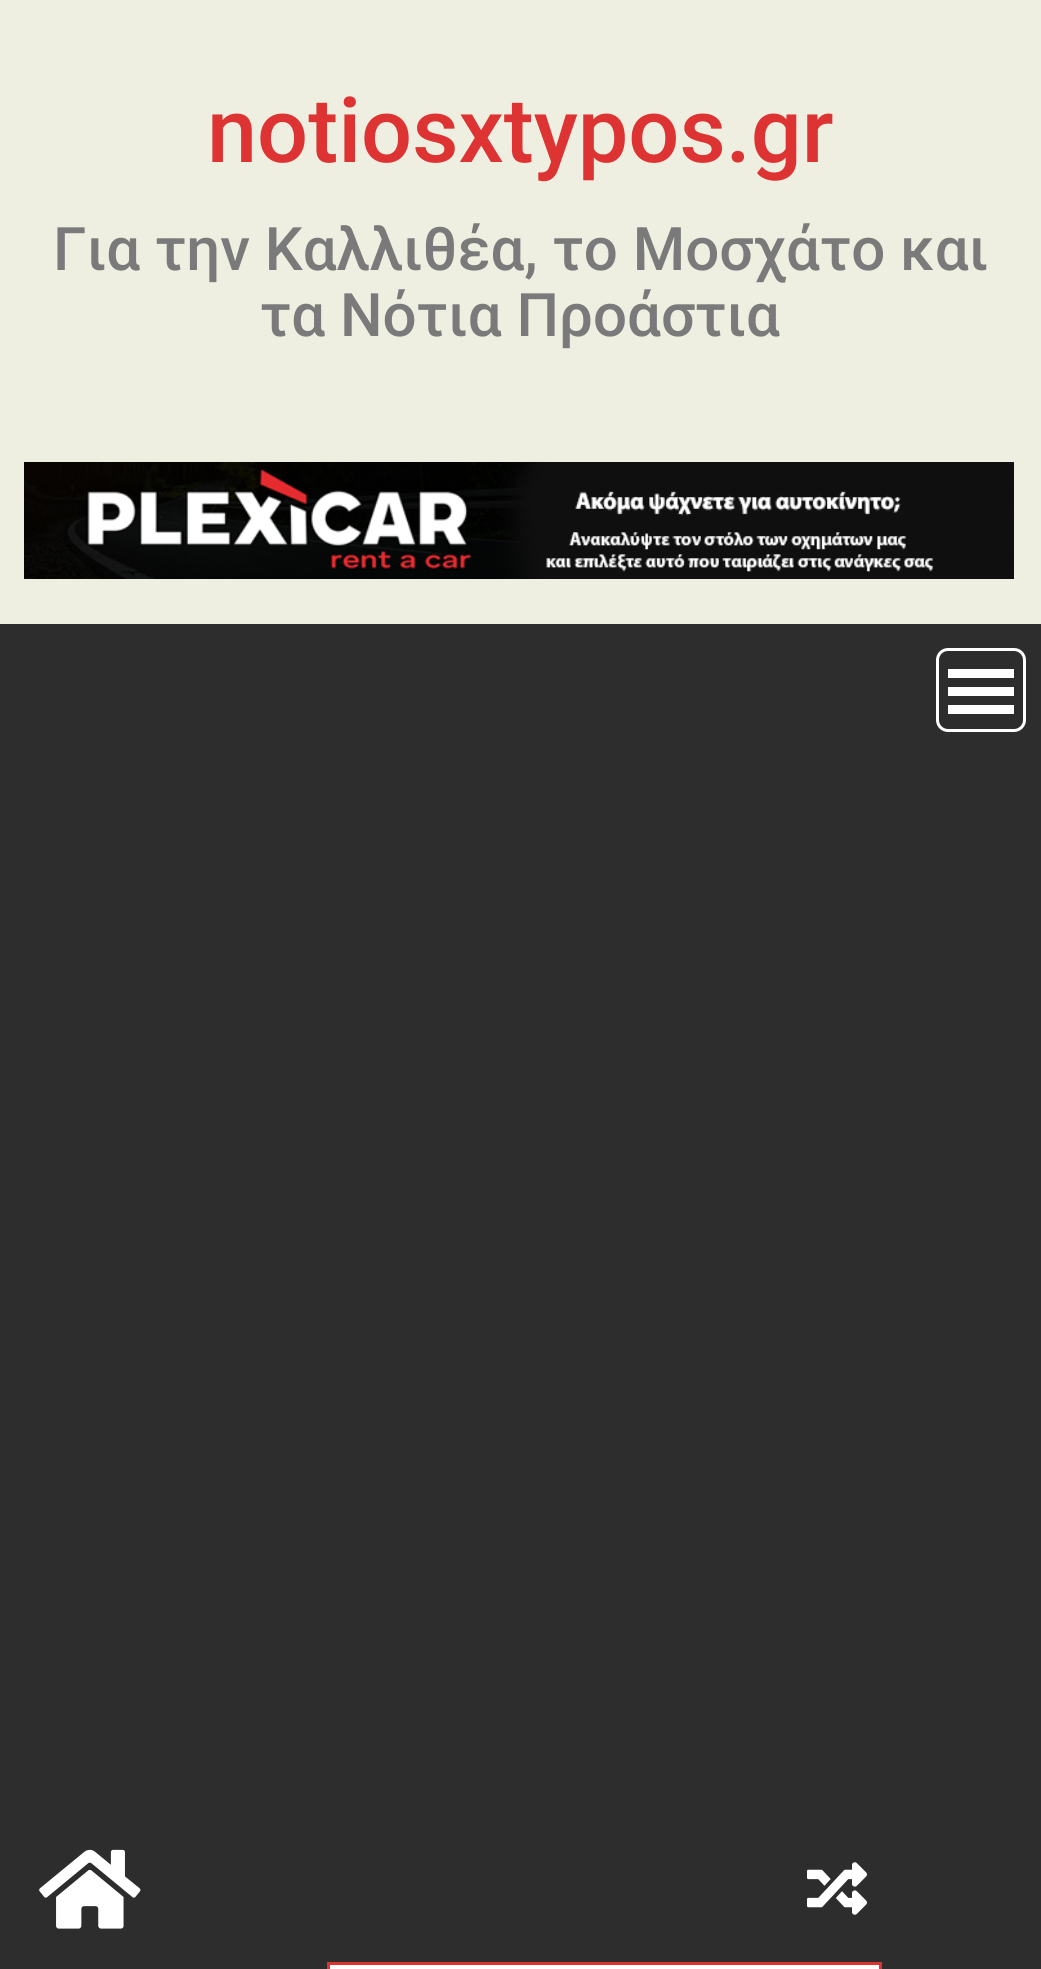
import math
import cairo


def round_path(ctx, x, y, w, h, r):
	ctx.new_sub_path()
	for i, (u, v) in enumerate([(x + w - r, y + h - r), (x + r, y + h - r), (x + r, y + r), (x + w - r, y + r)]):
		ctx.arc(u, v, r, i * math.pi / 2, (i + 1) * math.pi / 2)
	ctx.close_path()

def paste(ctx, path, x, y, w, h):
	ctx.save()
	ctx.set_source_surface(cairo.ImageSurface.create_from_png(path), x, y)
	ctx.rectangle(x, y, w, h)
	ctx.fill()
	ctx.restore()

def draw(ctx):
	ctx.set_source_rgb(0.933, 0.933, 0.882)
	ctx.paint()
	ctx.select_font_face('Roboto Medium')
	ctx.set_font_size(90)
	ctx.set_source_rgb(0.867, 0.2, 0.2)
	ctx.move_to(207, 162)
	ctx.show_text('notiosxtypos.gr')
	ctx.set_font_size(60)
	ctx.set_source_rgb(0.478, 0.478, 0.478)
	ctx.move_to(53, 270)
	ctx.show_text('Για την Καλλιθέα, το Μοσχάτο και')
	ctx.move_to(260, 336)
	ctx.show_text('τα Νότια Προάστια')
	paste(ctx, 'media/1.png', 24, 462, 990, 117)
	ctx.set_source_rgb(0.176, 0.176, 0.176)
	ctx.rectangle(0, 624, 1041, 1345)
	ctx.fill()
	round_path(ctx, 937.5, 649.5, 87, 81, 10.5)
	ctx.set_source_rgb(1, 1, 1)
	ctx.set_line_width(3)
	ctx.stroke()
	ctx.rectangle(948, 705, 66, 9)
	ctx.rectangle(948, 687, 66, 9)
	ctx.rectangle(948, 669, 66, 9)
	ctx.fill()
	paste(ctx, 'media/2.png', 39, 1849, 102, 80)
	paste(ctx, 'media/3.png', 807, 1862, 60, 53)
	ctx.rectangle(328.5, 1963.5, 552, 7)
	ctx.fill_preserve()
	ctx.set_source_rgb(0.867, 0.2, 0.2)
	ctx.stroke()


surface = cairo.ImageSurface(cairo.FORMAT_RGB24, 1041, 1969)
ctx = cairo.Context(surface)
options = cairo.FontOptions()
options.set_hint_metrics(cairo.HINT_METRICS_OFF)
options.set_hint_style(cairo.HINT_STYLE_NONE)
ctx.set_font_options(options)
ctx.set_miter_limit(4)
draw(ctx)
surface.write_to_png('image.png')
